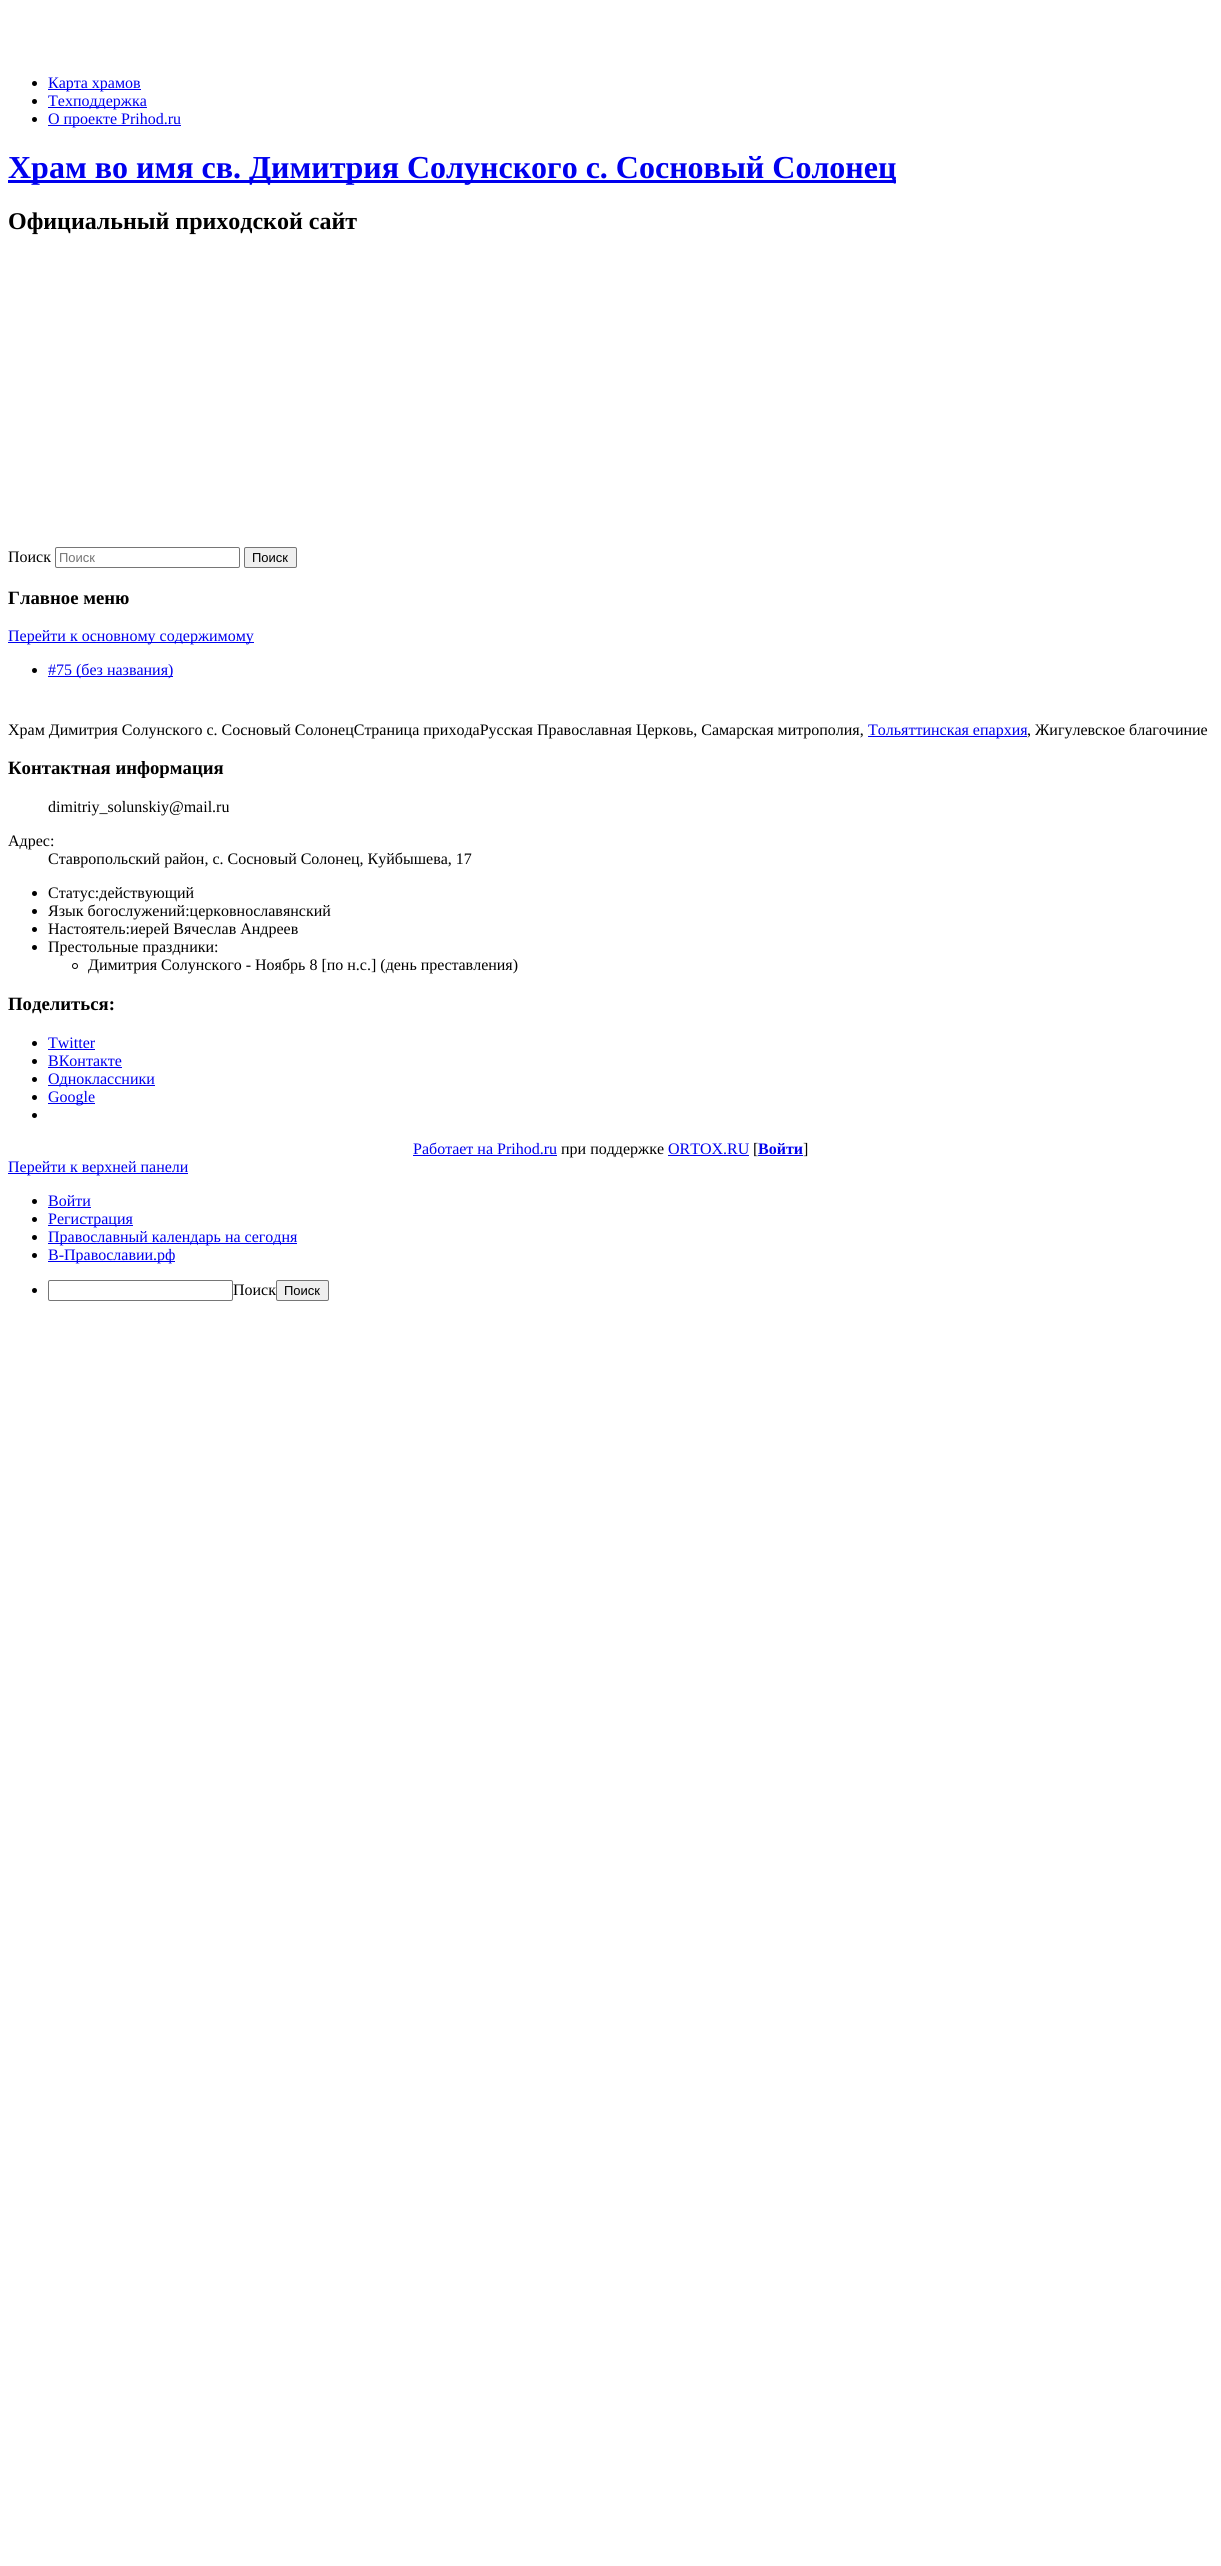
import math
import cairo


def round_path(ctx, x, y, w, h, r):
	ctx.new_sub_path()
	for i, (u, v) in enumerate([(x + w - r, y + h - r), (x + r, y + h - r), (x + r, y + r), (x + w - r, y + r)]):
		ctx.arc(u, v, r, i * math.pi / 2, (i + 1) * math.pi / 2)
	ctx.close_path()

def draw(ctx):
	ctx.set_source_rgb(1, 1, 1)
	ctx.paint()
	ctx.set_source_rgb(0, 0, 0)
	ctx.arc(34.5, 83.5, 2.5, 0, 2 * math.pi)
	ctx.fill()
	ctx.set_source_rgb(0, 0, 0.933)
	ctx.rectangle(48, 89, 93, 1)
	ctx.fill()
	ctx.select_font_face('Liberation Serif')
	ctx.set_font_size(16)
	ctx.move_to(48, 88)
	ctx.show_text('Карта храмов')
	ctx.set_source_rgb(0, 0, 0)
	ctx.new_path()
	ctx.arc(34.5, 101.5, 2.5, 0, 2 * math.pi)
	ctx.fill()
	ctx.set_source_rgb(0, 0, 0.933)
	ctx.rectangle(48, 107, 99, 1)
	ctx.fill()
	ctx.move_to(48, 106)
	ctx.show_text('Техподдержка')
	ctx.set_source_rgb(0, 0, 0)
	ctx.new_path()
	ctx.arc(34.5, 119.5, 2.5, 0, 2 * math.pi)
	ctx.fill()
	ctx.set_source_rgb(0, 0, 0.933)
	ctx.rectangle(48, 125, 133, 1)
	ctx.fill()
	ctx.move_to(48, 124)
	ctx.show_text('О проекте Prihod.ru')
	ctx.rectangle(8, 180, 888, 3)
	ctx.fill()
	ctx.select_font_face('Liberation Serif', cairo.FONT_SLANT_NORMAL, cairo.FONT_WEIGHT_BOLD)
	ctx.set_font_size(32)
	ctx.move_to(8, 178)
	ctx.show_text('Храм во имя св. Димитрия Солунского с. Сосновый Солонец')
	ctx.set_font_size(24)
	ctx.set_source_rgb(0, 0, 0)
	ctx.move_to(8, 229)
	ctx.show_text('Официальный приходской сайт')
	ctx.select_font_face('Liberation Serif')
	ctx.set_font_size(16)
	ctx.move_to(8, 562)
	ctx.show_text('Поиск')
	round_path(ctx, 55.5, 547.5, 184, 20, 1.5)
	ctx.set_source_rgb(0.463, 0.463, 0.463)
	ctx.set_line_width(1)
	ctx.stroke()
	ctx.select_font_face('Liberation Sans')
	ctx.set_font_size(13)
	ctx.set_source_rgb(0.459, 0.459, 0.459)
	ctx.move_to(59, 562)
	ctx.show_text('Поиск')
	ctx.set_source_rgb(0.937, 0.937, 0.937)
	round_path(ctx, 244.5, 547.5, 52, 20, 1.5)
	ctx.fill_preserve()
	ctx.set_source_rgb(0.463, 0.463, 0.463)
	ctx.stroke()
	ctx.set_source_rgb(0, 0, 0)
	ctx.move_to(252, 562)
	ctx.show_text('Поиск')
	ctx.select_font_face('Liberation Serif', cairo.FONT_SLANT_NORMAL, cairo.FONT_WEIGHT_BOLD)
	ctx.set_font_size(18.75)
	ctx.move_to(8, 604)
	ctx.show_text('Главное меню')
	ctx.set_source_rgb(0, 0, 0.933)
	ctx.rectangle(8, 642, 246, 1)
	ctx.fill()
	ctx.select_font_face('Liberation Serif')
	ctx.set_font_size(16)
	ctx.move_to(8, 641)
	ctx.show_text('Перейти к основному содержимому')
	ctx.set_source_rgb(0, 0, 0)
	ctx.new_path()
	ctx.arc(34.5, 670.5, 2.5, 0, 2 * math.pi)
	ctx.fill()
	ctx.set_source_rgb(0, 0, 0.933)
	ctx.rectangle(48, 676, 125, 1)
	ctx.fill()
	ctx.move_to(48, 675)
	ctx.show_text('#75 (без названия)')
	ctx.set_source_rgb(0, 0, 0)
	ctx.move_to(8, 735)
	ctx.show_text('Храм Димитрия Солунского с. Сосновый СолонецСтраница приходаРусская Православная Церковь, Самарская митрополия,')
	ctx.set_source_rgb(0, 0, 0.933)
	ctx.rectangle(868, 736, 159, 1)
	ctx.fill()
	ctx.move_to(868, 735)
	ctx.show_text('Тольяттинская епархия')
	ctx.set_source_rgb(0, 0, 0)
	ctx.move_to(1027, 735)
	ctx.show_text(', Жигулевское благочиние')
	ctx.select_font_face('Liberation Serif', cairo.FONT_SLANT_NORMAL, cairo.FONT_WEIGHT_BOLD)
	ctx.set_font_size(18.75)
	ctx.move_to(8, 774)
	ctx.show_text('Контактная информация')
	ctx.select_font_face('Liberation Serif')
	ctx.set_font_size(16)
	for x, y, s in [
		(48, 812, 'dimitriy_solunskiy@mail.ru'),
		(8, 846, 'Адрес:'),
		(48, 864, 'Ставропольский район, с. Сосновый Солонец, Куйбышева, 17'),
	]:
		ctx.move_to(x, y)
		ctx.show_text(s)
	ctx.new_path()
	ctx.arc(34.5, 893.5, 2.5, 0, 2 * math.pi)
	ctx.fill()
	ctx.move_to(48, 898)
	ctx.show_text('Статус:действующий')
	ctx.new_path()
	ctx.arc(34.5, 911.5, 2.5, 0, 2 * math.pi)
	ctx.fill()
	ctx.move_to(48, 916)
	ctx.show_text('Язык богослужений:церковнославянский')
	ctx.new_path()
	ctx.arc(34.5, 929.5, 2.5, 0, 2 * math.pi)
	ctx.fill()
	ctx.move_to(48, 934)
	ctx.show_text('Настоятель:иерей Вячеслав Андреев')
	ctx.new_path()
	ctx.arc(34.5, 947.5, 2.5, 0, 2 * math.pi)
	ctx.fill()
	ctx.move_to(48, 952)
	ctx.show_text('Престольные праздники:')
	ctx.new_path()
	ctx.arc(75, 966, 2.5, 0, 2 * math.pi)
	ctx.stroke()
	ctx.move_to(88, 970)
	ctx.show_text('Димитрия Солунского - Ноябрь 8 [по н.с.] (день преставления)')
	ctx.select_font_face('Liberation Serif', cairo.FONT_SLANT_NORMAL, cairo.FONT_WEIGHT_BOLD)
	ctx.set_font_size(18.75)
	ctx.move_to(8, 1010)
	ctx.show_text('Поделиться:')
	ctx.new_path()
	ctx.arc(34.5, 1043.5, 2.5, 0, 2 * math.pi)
	ctx.fill()
	ctx.select_font_face('Liberation Serif')
	ctx.set_font_size(16)
	ctx.set_source_rgb(0, 0, 0.933)
	ctx.move_to(48, 1048)
	ctx.show_text('Twitter')
	ctx.rectangle(48, 1049, 47, 1)
	ctx.fill()
	ctx.set_source_rgb(0, 0, 0)
	ctx.arc(34.5, 1061.5, 2.5, 0, 2 * math.pi)
	ctx.fill()
	ctx.set_source_rgb(0, 0, 0.933)
	ctx.move_to(48, 1066)
	ctx.show_text('ВКонтакте')
	ctx.rectangle(48, 1067, 74, 1)
	ctx.fill()
	ctx.set_source_rgb(0, 0, 0)
	ctx.arc(34.5, 1079.5, 2.5, 0, 2 * math.pi)
	ctx.fill()
	ctx.set_source_rgb(0, 0, 0.933)
	ctx.rectangle(48, 1085, 107, 1)
	ctx.fill()
	ctx.move_to(48, 1084)
	ctx.show_text('Одноклассники')
	ctx.set_source_rgb(0, 0, 0)
	ctx.new_path()
	ctx.arc(34.5, 1097.5, 2.5, 0, 2 * math.pi)
	ctx.fill()
	ctx.set_source_rgb(0, 0, 0.933)
	ctx.rectangle(48, 1103, 47, 1)
	ctx.fill()
	ctx.move_to(48, 1102)
	ctx.show_text('Google')
	ctx.set_source_rgb(0, 0, 0)
	ctx.new_path()
	ctx.arc(34.5, 1115.5, 2.5, 0, 2 * math.pi)
	ctx.fill()
	ctx.set_source_rgb(0, 0, 0.933)
	ctx.move_to(413, 1154)
	ctx.show_text('Работает на Prihod.ru')
	ctx.set_source_rgb(0, 0, 0)
	ctx.move_to(561, 1154)
	ctx.show_text('при поддержке')
	ctx.set_source_rgb(0, 0, 0.933)
	ctx.rectangle(413, 1155, 144, 1)
	ctx.fill()
	ctx.rectangle(668, 1155, 81, 1)
	ctx.fill()
	ctx.move_to(668, 1154)
	ctx.show_text('ORTOX.RU')
	ctx.set_source_rgb(0, 0, 0)
	ctx.move_to(753, 1154)
	ctx.show_text('[')
	ctx.select_font_face('Liberation Serif', cairo.FONT_SLANT_NORMAL, cairo.FONT_WEIGHT_BOLD)
	ctx.set_source_rgb(0, 0, 0.933)
	ctx.move_to(758, 1154)
	ctx.show_text('Войти')
	ctx.rectangle(758, 1155, 45, 1)
	ctx.fill()
	ctx.select_font_face('Liberation Serif')
	ctx.set_source_rgb(0, 0, 0)
	ctx.move_to(803, 1154)
	ctx.show_text(']')
	ctx.set_source_rgb(0, 0, 0.933)
	ctx.rectangle(8, 1173, 180, 1)
	ctx.fill()
	ctx.move_to(8, 1172)
	ctx.show_text('Перейти к верхней панели')
	ctx.set_source_rgb(0, 0, 0)
	ctx.new_path()
	ctx.arc(34.5, 1201.5, 2.5, 0, 2 * math.pi)
	ctx.fill()
	ctx.set_source_rgb(0, 0, 0.933)
	ctx.move_to(48, 1206)
	ctx.show_text('Войти')
	ctx.rectangle(48, 1207, 43, 1)
	ctx.fill()
	ctx.set_source_rgb(0, 0, 0)
	ctx.arc(34.5, 1219.5, 2.5, 0, 2 * math.pi)
	ctx.fill()
	ctx.set_source_rgb(0, 0, 0.933)
	ctx.rectangle(48, 1225, 85, 1)
	ctx.fill()
	ctx.move_to(48, 1224)
	ctx.show_text('Регистрация')
	ctx.set_source_rgb(0, 0, 0)
	ctx.new_path()
	ctx.arc(34.5, 1237.5, 2.5, 0, 2 * math.pi)
	ctx.fill()
	ctx.set_source_rgb(0, 0, 0.933)
	ctx.rectangle(48, 1243, 249, 1)
	ctx.fill()
	ctx.move_to(48, 1242)
	ctx.show_text('Православный календарь на сегодня')
	ctx.set_source_rgb(0, 0, 0)
	ctx.new_path()
	ctx.arc(34.5, 1255.5, 2.5, 0, 2 * math.pi)
	ctx.fill()
	ctx.set_source_rgb(0, 0, 0.933)
	ctx.rectangle(48, 1261, 127, 1)
	ctx.fill()
	ctx.move_to(48, 1260)
	ctx.show_text('В-Православии.рф')
	ctx.set_source_rgb(0, 0, 0)
	ctx.new_path()
	ctx.arc(34.5, 1290.5, 2.5, 0, 2 * math.pi)
	ctx.fill()
	round_path(ctx, 48.5, 1280.5, 184, 20, 1.5)
	ctx.set_source_rgb(0.463, 0.463, 0.463)
	ctx.stroke()
	ctx.set_source_rgb(0, 0, 0)
	ctx.move_to(233, 1295)
	ctx.show_text('Поиск')
	ctx.set_source_rgb(0.937, 0.937, 0.937)
	round_path(ctx, 276.5, 1280.5, 52, 20, 1.5)
	ctx.fill_preserve()
	ctx.set_source_rgb(0.463, 0.463, 0.463)
	ctx.stroke()
	ctx.select_font_face('Liberation Sans')
	ctx.set_font_size(13)
	ctx.set_source_rgb(0, 0, 0)
	ctx.move_to(284, 1295)
	ctx.show_text('Поиск')


surface = cairo.ImageSurface(cairo.FORMAT_RGB24, 1221, 2566)
ctx = cairo.Context(surface)
options = cairo.FontOptions()
options.set_hint_metrics(cairo.HINT_METRICS_OFF)
options.set_hint_style(cairo.HINT_STYLE_NONE)
ctx.set_font_options(options)
ctx.set_miter_limit(4)
draw(ctx)
surface.write_to_png('image.png')
